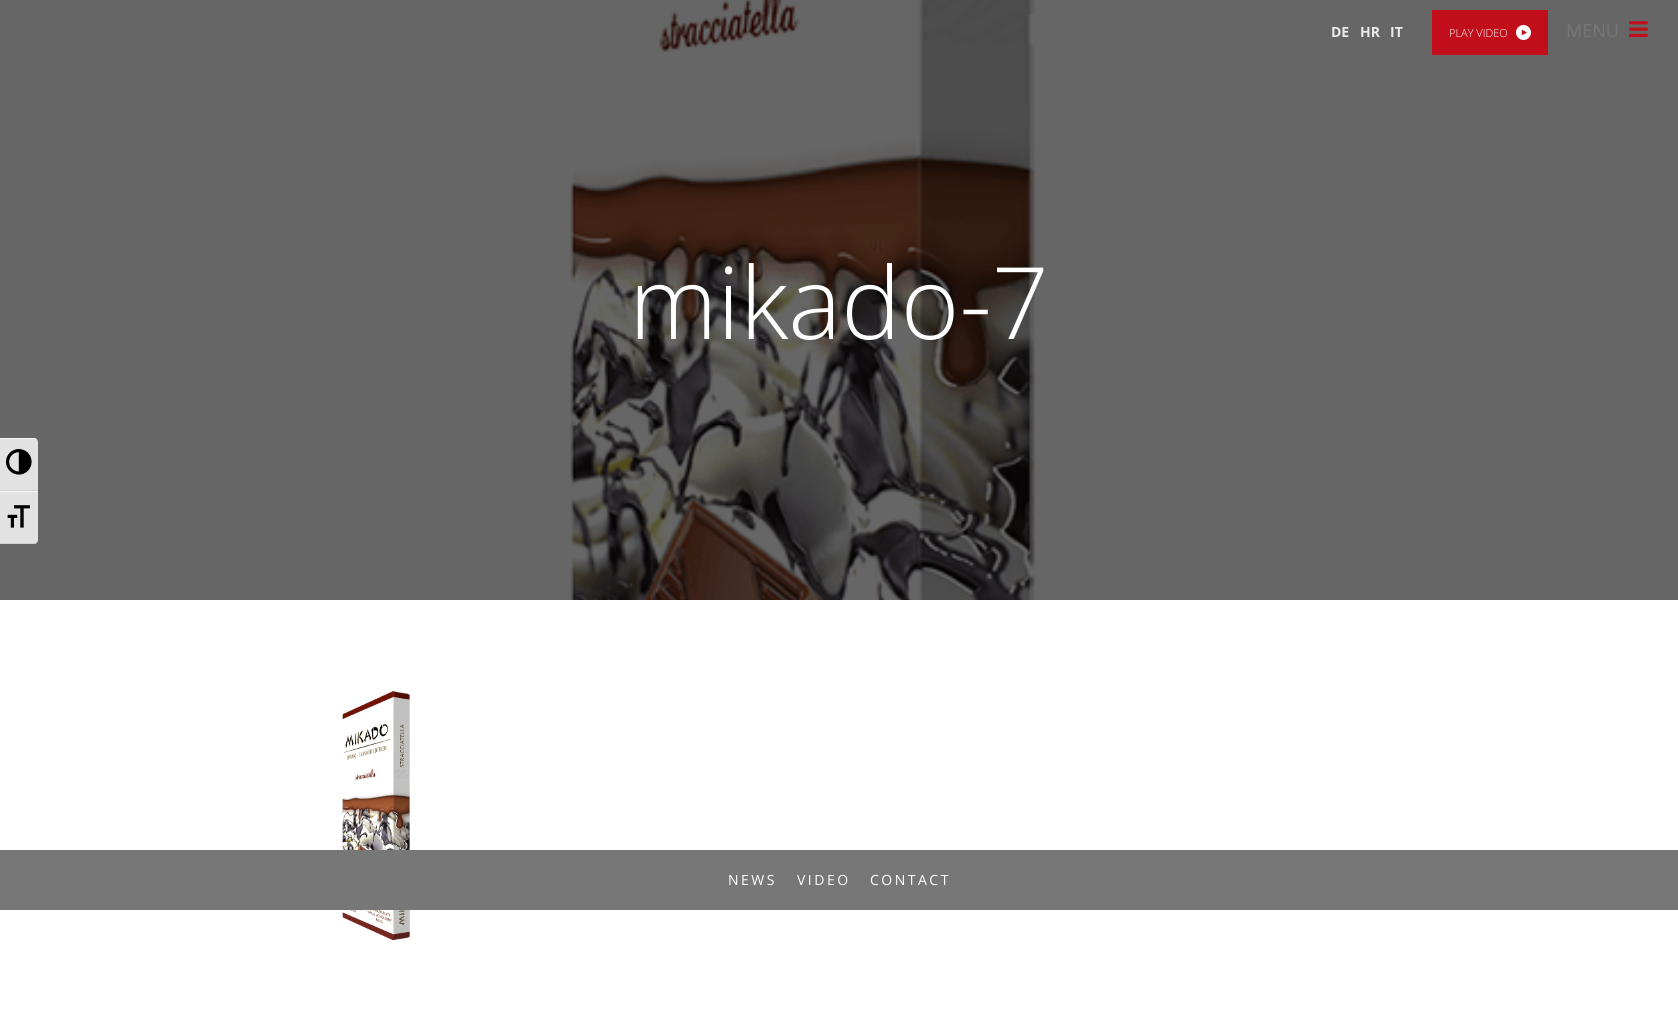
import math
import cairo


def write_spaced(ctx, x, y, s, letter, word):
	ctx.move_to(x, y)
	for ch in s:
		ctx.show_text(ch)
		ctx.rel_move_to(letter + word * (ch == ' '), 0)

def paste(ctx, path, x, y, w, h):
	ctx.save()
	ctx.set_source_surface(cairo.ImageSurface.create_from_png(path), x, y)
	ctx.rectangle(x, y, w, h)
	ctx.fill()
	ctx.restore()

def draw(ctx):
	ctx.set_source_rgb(1, 1, 1)
	ctx.paint()
	ctx.set_source_rgb(0.4, 0.4, 0.4)
	ctx.rectangle(0, 0, 1678, 600)
	ctx.fill()
	ctx.select_font_face('Open Sans', cairo.FONT_SLANT_NORMAL, cairo.FONT_WEIGHT_BOLD)
	ctx.set_font_size(14)
	ctx.set_source_rgb(0.918, 0.918, 0.918)
	for x, y, s in [
		(1331, 37, 'DE'),
		(1360, 37, 'HR'),
		(1390, 37, 'IT'),
	]:
		ctx.move_to(x, y)
		ctx.show_text(s)
	ctx.set_source_rgb(0.761, 0.055, 0.102)
	ctx.rectangle(1432, 10, 116, 45)
	ctx.fill()
	ctx.select_font_face('Open Sans Light')
	ctx.set_font_size(11)
	ctx.set_source_rgb(1, 1, 1)
	ctx.move_to(1449, 37)
	ctx.show_text('PLAY VIDEO')
	paste(ctx, 'media/1.png', 1516, 25, 15, 15)
	ctx.select_font_face('Open Sans')
	ctx.set_font_size(18)
	ctx.set_source_rgb(0.467, 0.467, 0.467)
	ctx.move_to(1566, 37)
	ctx.show_text('MENU')
	paste(ctx, 'media/2.png', 1629, 21, 19, 16)
	paste(ctx, 'media/3.png', 570, 0, 465, 600)
	ctx.select_font_face('Open Sans Light')
	ctx.set_font_size(100)
	ctx.set_source_rgb(1, 1, 1)
	ctx.move_to(629, 339)
	ctx.show_text('mikado-7')
	paste(ctx, 'media/4.png', 342, 690, 68, 251)
	ctx.set_source_rgb(0.886, 0.886, 0.886)
	ctx.new_path()
	ctx.move_to(0, 438)
	ctx.line_to(34, 438)
	ctx.curve_to(36, 438, 38, 440, 38, 442)
	ctx.line_to(38, 491)
	ctx.line_to(0, 491)
	ctx.close_path()
	ctx.fill()
	ctx.set_source_rgb(0.961, 0.961, 0.961)
	ctx.new_path()
	ctx.move_to(0, 438)
	ctx.line_to(0, 439)
	ctx.line_to(34, 439)
	ctx.curve_to(36, 439, 38, 440, 38, 442)
	ctx.curve_to(38, 440, 36, 438, 34, 438)
	ctx.close_path()
	ctx.fill()
	ctx.set_source_rgb(0.824, 0.824, 0.824)
	ctx.rectangle(0, 490, 38, 1)
	ctx.fill()
	paste(ctx, 'media/5.png', 6, 449, 26, 26)
	ctx.set_source_rgb(0.886, 0.886, 0.886)
	ctx.new_path()
	ctx.move_to(0, 491)
	ctx.line_to(38, 491)
	ctx.line_to(38, 540)
	ctx.curve_to(38, 542, 36, 544, 34, 544)
	ctx.line_to(0, 544)
	ctx.close_path()
	ctx.fill()
	ctx.set_source_rgb(0.961, 0.961, 0.961)
	ctx.rectangle(0, 491, 38, 1)
	ctx.fill()
	ctx.set_source_rgb(0.824, 0.824, 0.824)
	ctx.new_path()
	ctx.move_to(0, 543)
	ctx.line_to(0, 544)
	ctx.line_to(34, 544)
	ctx.curve_to(36, 544, 38, 542, 38, 540)
	ctx.curve_to(38, 542, 36, 543, 34, 543)
	ctx.close_path()
	ctx.fill()
	paste(ctx, 'media/6.png', 7, 505, 23, 23)
	ctx.set_source_rgb(0.467, 0.467, 0.467)
	ctx.rectangle(0, 850, 1678, 60)
	ctx.fill()
	ctx.select_font_face('Open Sans')
	ctx.set_font_size(14)
	ctx.set_source_rgb(1, 1, 1)
	for x, y, s in [
		(728, 885, 'NEWS'),
		(797, 885, 'VIDEO'),
		(870, 885, 'CONTACT'),
	]:
		write_spaced(ctx, x, y, s, 2.5, 0)


surface = cairo.ImageSurface(cairo.FORMAT_RGB24, 1678, 1018)
ctx = cairo.Context(surface)
options = cairo.FontOptions()
options.set_hint_metrics(cairo.HINT_METRICS_OFF)
options.set_hint_style(cairo.HINT_STYLE_NONE)
ctx.set_font_options(options)
ctx.set_miter_limit(4)
draw(ctx)
surface.write_to_png('image.png')
